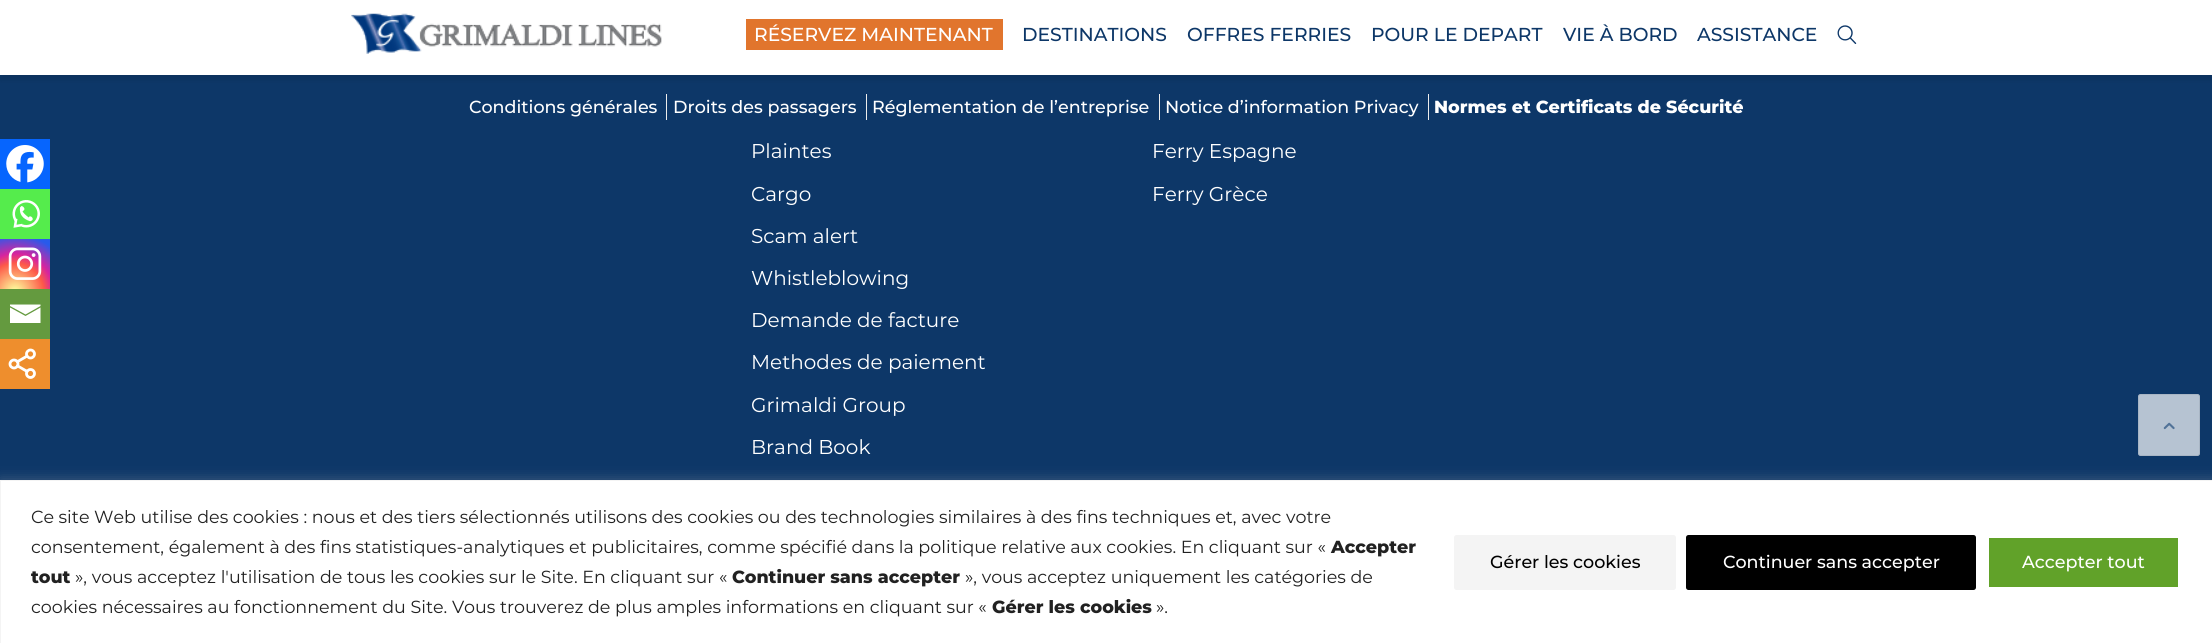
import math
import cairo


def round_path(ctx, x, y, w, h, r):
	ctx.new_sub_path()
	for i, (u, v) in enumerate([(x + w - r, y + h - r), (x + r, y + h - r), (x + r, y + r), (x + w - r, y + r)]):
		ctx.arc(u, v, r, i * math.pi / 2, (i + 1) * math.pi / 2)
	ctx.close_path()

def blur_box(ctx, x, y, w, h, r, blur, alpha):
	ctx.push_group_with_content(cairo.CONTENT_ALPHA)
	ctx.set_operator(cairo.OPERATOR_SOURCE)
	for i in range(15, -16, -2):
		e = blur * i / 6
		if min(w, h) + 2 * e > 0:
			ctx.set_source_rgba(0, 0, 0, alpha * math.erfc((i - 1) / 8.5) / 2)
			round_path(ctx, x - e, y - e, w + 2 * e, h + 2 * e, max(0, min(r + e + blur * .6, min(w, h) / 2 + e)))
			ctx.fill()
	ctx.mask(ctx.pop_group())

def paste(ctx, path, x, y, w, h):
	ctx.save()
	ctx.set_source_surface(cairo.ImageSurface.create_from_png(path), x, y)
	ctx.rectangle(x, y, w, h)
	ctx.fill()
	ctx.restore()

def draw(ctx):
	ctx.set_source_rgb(0.051, 0.216, 0.408)
	ctx.paint()
	ctx.set_source_rgb(0, 0, 0)
	blur_box(ctx, 0, 5, 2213, 75, 0, 2.5, 0.1)
	ctx.set_source_rgb(1, 1, 1)
	ctx.rectangle(0, 0, 2212, 75)
	ctx.fill()
	paste(ctx, 'media/1.png', 351, 13, 311, 41)
	ctx.set_source_rgb(0.882, 0.459, 0.176)
	ctx.rectangle(746, 19, 257, 31)
	ctx.fill()
	ctx.select_font_face('Montserrat Medium')
	ctx.set_font_size(18.75)
	ctx.set_source_rgb(1, 1, 1)
	ctx.move_to(754, 41)
	ctx.show_text('RÉSERVEZ MAINTENANT')
	ctx.set_source_rgb(0.051, 0.216, 0.408)
	for x, y, s in [
		(1022, 41, 'DESTINATIONS'),
		(1187, 41, 'OFFRES FERRIES'),
		(1371, 41, 'POUR LE DEPART'),
		(1563, 41, 'VIE À BORD'),
		(1697, 41, 'ASSISTANCE'),
	]:
		ctx.move_to(x, y)
		ctx.show_text(s)
	paste(ctx, 'media/2.png', 1837, 25, 20, 19)
	ctx.set_font_size(17.5)
	ctx.set_source_rgb(1, 1, 1)
	ctx.move_to(469, 113)
	ctx.show_text('Conditions générales')
	ctx.set_source_rgb(0.922, 0.922, 0.922)
	ctx.rectangle(666, 94, 1, 26)
	ctx.fill()
	ctx.set_source_rgb(1, 1, 1)
	ctx.move_to(673, 113)
	ctx.show_text('Droits des passagers')
	ctx.set_source_rgb(0.922, 0.922, 0.922)
	ctx.rectangle(866, 94, 1, 26)
	ctx.fill()
	ctx.set_source_rgb(1, 1, 1)
	ctx.move_to(872, 113)
	ctx.show_text('Réglementation de l’entreprise')
	ctx.set_source_rgb(0.922, 0.922, 0.922)
	ctx.rectangle(1159, 94, 1, 26)
	ctx.fill()
	ctx.set_source_rgb(1, 1, 1)
	ctx.move_to(1165, 113)
	ctx.show_text('Notice d’information Privacy')
	ctx.set_source_rgb(0.922, 0.922, 0.922)
	ctx.rectangle(1428, 94, 1, 26)
	ctx.fill()
	ctx.select_font_face('Montserrat ExtraBold')
	ctx.set_source_rgb(1, 1, 1)
	ctx.move_to(1434, 113)
	ctx.show_text('Normes et Certificats de Sécurité')
	ctx.set_source_rgb(0.027, 0.396, 0.996)
	ctx.rectangle(0, 139, 50, 50)
	ctx.fill()
	paste(ctx, 'media/3.png', 6, 145, 38, 38)
	ctx.set_source_rgb(0.333, 0.922, 0.298)
	ctx.rectangle(0, 189, 50, 50)
	ctx.fill()
	paste(ctx, 'media/4.png', 12, 200, 28, 28)
	gradient = cairo.RadialGradient(15, 292, 0, 15, 292, 64)
	gradient.add_color_stop_rgba(0, 0.992, 0.957, 0.592, 1)
	gradient.add_color_stop_rgba(0.05, 0.992, 0.957, 0.592, 1)
	gradient.add_color_stop_rgba(0.45, 0.992, 0.349, 0.286, 1)
	gradient.add_color_stop_rgba(0.6, 0.839, 0.141, 0.624, 1)
	gradient.add_color_stop_rgba(0.9, 0.157, 0.353, 0.922, 1)
	ctx.set_source(gradient)
	ctx.rectangle(0, 239, 50, 50)
	ctx.fill()
	paste(ctx, 'media/5.png', 8, 247, 34, 33)
	ctx.set_source_rgb(0.392, 0.604, 0.247)
	ctx.rectangle(0, 289, 50, 50)
	ctx.fill()
	ctx.set_source_rgb(1, 1, 1)
	ctx.new_path()
	ctx.move_to(8.5, 304.5)
	ctx.line_to(40.5, 304.5)
	ctx.line_to(40.5, 306)
	ctx.line_to(25.5, 314.5)
	ctx.line_to(10, 306)
	ctx.line_to(10, 304.5)
	ctx.move_to(10, 307.5)
	ctx.line_to(25.5, 316)
	ctx.line_to(40.5, 307.5)
	ctx.line_to(40.5, 323)
	ctx.line_to(10, 323)
	ctx.line_to(10, 307.5)
	ctx.fill()
	ctx.set_source_rgb(0.933, 0.557, 0.176)
	ctx.rectangle(0, 339, 50, 50)
	ctx.fill()
	paste(ctx, 'media/6.png', 8, 348, 28, 31)
	ctx.select_font_face('Montserrat')
	ctx.set_font_size(20)
	ctx.set_source_rgb(1, 1, 1)
	for x, y, s in [
		(751, 158, 'Plaintes'),
		(751, 201, 'Cargo'),
		(751, 243, 'Scam alert'),
		(751, 285, 'Whistleblowing'),
		(751, 327, 'Demande de facture'),
		(751, 369, 'Methodes de paiement'),
		(751, 412, 'Grimaldi Group'),
		(751, 454, 'Brand Book'),
		(1152, 158, 'Ferry Espagne'),
		(1152, 201, 'Ferry Grèce'),
	]:
		ctx.move_to(x, y)
		ctx.show_text(s)
	ctx.set_source_rgb(0.714, 0.765, 0.824)
	round_path(ctx, 2138.5, 394.5, 61, 61, 2)
	ctx.fill_preserve()
	ctx.set_source_rgb(0.659, 0.71, 0.769)
	ctx.set_line_width(1)
	ctx.stroke()
	paste(ctx, 'media/7.png', 2163, 422, 12, 8)
	ctx.set_source_rgb(0.675, 0.671, 0.671)
	blur_box(ctx, 0, 479, 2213, 164, 0, 6, 0.3)
	ctx.set_source_rgb(1, 1, 1)
	ctx.rectangle(0.5, 480.5, 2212, 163)
	ctx.fill_preserve()
	ctx.set_source_rgb(0.957, 0.957, 0.957)
	ctx.stroke()
	ctx.set_font_size(17.5)
	ctx.set_source_rgb(0.129, 0.129, 0.129)
	ctx.move_to(31, 523)
	ctx.show_text('Ce site Web utilise des cookies : nous et des tiers sélectionnés utilisons des cookies ou des technologies similaires à des fins techniques et, avec votre')
	ctx.move_to(31, 553)
	ctx.show_text('consentement, également à des fins statistiques-analytiques et publicitaires, comme spécifié dans la politique relative aux cookies. En cliquant sur «')
	ctx.select_font_face('Montserrat ExtraBold')
	ctx.move_to(1331, 553)
	ctx.show_text('Accepter')
	ctx.move_to(31, 583)
	ctx.show_text('tout')
	ctx.select_font_face('Montserrat')
	ctx.move_to(75, 583)
	ctx.show_text('», vous acceptez l\'utilisation de tous les cookies sur le Site. En cliquant sur «')
	ctx.select_font_face('Montserrat ExtraBold')
	ctx.move_to(732, 583)
	ctx.show_text('Continuer sans accepter')
	ctx.select_font_face('Montserrat')
	ctx.move_to(965, 583)
	ctx.show_text('», vous acceptez uniquement les catégories de')
	ctx.move_to(31, 613)
	ctx.show_text('cookies nécessaires au fonctionnement du Site. Vous trouverez de plus amples informations en cliquant sur «')
	ctx.select_font_face('Montserrat ExtraBold')
	ctx.move_to(992, 613)
	ctx.show_text('Gérer les cookies')
	ctx.select_font_face('Montserrat')
	ctx.move_to(1156, 613)
	ctx.show_text('».')
	ctx.set_source_rgb(0.957, 0.957, 0.957)
	round_path(ctx, 1454, 535, 222, 55, 2.5)
	ctx.fill()
	ctx.select_font_face('Montserrat Medium')
	ctx.set_source_rgb(0, 0, 0)
	ctx.move_to(1490, 568)
	ctx.show_text('Gérer les cookies')
	round_path(ctx, 1687.5, 536.5, 287, 52, 1)
	ctx.fill_preserve()
	ctx.set_line_width(3)
	ctx.stroke()
	ctx.set_source_rgb(1, 1, 1)
	ctx.move_to(1723, 568)
	ctx.show_text('Continuer sans accepter')
	ctx.set_source_rgb(0.38, 0.635, 0.161)
	round_path(ctx, 1987.5, 536.5, 192, 52, 1)
	ctx.fill_preserve()
	ctx.set_source_rgb(1, 1, 1)
	ctx.stroke()
	ctx.move_to(2022, 568)
	ctx.show_text('Accepter tout')


surface = cairo.ImageSurface(cairo.FORMAT_RGB24, 2212, 643)
ctx = cairo.Context(surface)
options = cairo.FontOptions()
options.set_hint_metrics(cairo.HINT_METRICS_OFF)
options.set_hint_style(cairo.HINT_STYLE_NONE)
ctx.set_font_options(options)
ctx.set_miter_limit(4)
draw(ctx)
surface.write_to_png('image.png')
